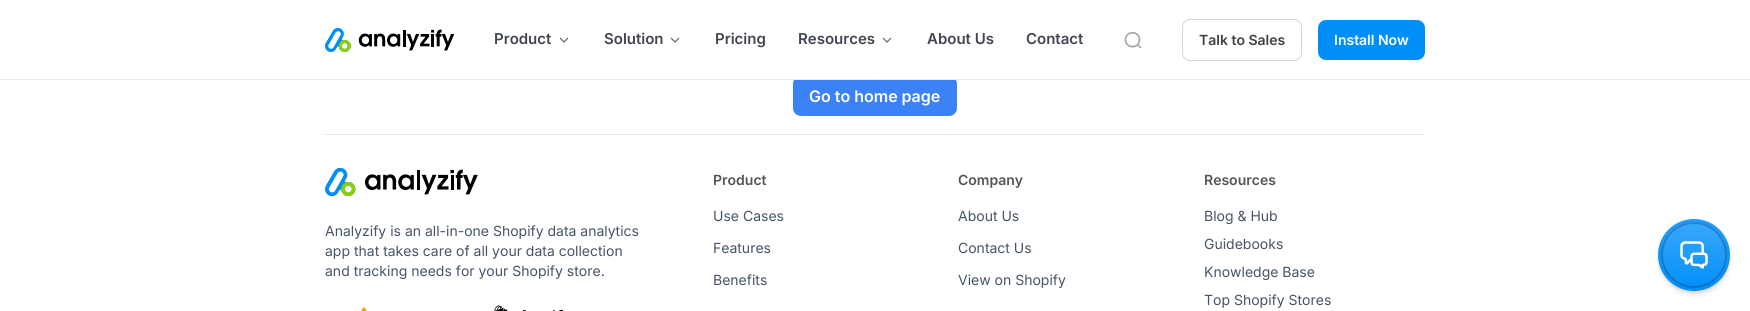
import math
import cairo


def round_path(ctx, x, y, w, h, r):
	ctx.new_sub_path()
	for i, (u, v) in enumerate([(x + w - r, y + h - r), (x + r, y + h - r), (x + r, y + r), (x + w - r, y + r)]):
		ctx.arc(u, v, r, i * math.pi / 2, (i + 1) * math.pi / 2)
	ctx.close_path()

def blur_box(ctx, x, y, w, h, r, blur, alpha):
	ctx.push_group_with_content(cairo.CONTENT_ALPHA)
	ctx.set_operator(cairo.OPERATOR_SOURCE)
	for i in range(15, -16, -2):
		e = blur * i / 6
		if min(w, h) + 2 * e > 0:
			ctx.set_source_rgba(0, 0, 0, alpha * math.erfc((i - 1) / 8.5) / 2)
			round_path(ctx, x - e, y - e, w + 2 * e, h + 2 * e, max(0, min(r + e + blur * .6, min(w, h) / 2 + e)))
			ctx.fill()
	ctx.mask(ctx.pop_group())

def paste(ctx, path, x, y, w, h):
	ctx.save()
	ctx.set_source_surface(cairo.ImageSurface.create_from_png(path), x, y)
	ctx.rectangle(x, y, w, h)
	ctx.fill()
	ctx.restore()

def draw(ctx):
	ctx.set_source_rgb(1, 1, 1)
	ctx.paint()
	ctx.set_source_rgb(0.231, 0.51, 0.965)
	round_path(ctx, 793, 76, 164, 40, 8)
	ctx.fill()
	ctx.set_source_rgb(1, 1, 1)
	ctx.rectangle(794, 76, 162, 3)
	ctx.fill()
	ctx.set_source_rgb(0.914, 0.918, 0.922)
	ctx.rectangle(0, 79, 1750, 1)
	ctx.fill()
	paste(ctx, 'media/1.png', 325, 28, 129, 24)
	ctx.select_font_face('Inter SemiBold')
	ctx.set_font_size(15)
	ctx.set_source_rgb(0.255, 0.275, 0.318)
	ctx.move_to(494, 44)
	ctx.show_text('Product')
	ctx.new_path()
	ctx.move_to(560, 38)
	ctx.line_to(564, 42)
	ctx.line_to(568, 38)
	ctx.set_source_rgb(0.4, 0.439, 0.522)
	ctx.set_line_width(1.3)
	ctx.stroke()
	ctx.set_source_rgb(0.255, 0.275, 0.318)
	ctx.move_to(604, 44)
	ctx.show_text('Solution')
	ctx.new_path()
	ctx.move_to(671, 38)
	ctx.line_to(675, 42)
	ctx.line_to(679, 38)
	ctx.set_source_rgb(0.4, 0.439, 0.522)
	ctx.stroke()
	ctx.set_source_rgb(0.255, 0.275, 0.318)
	ctx.move_to(715, 44)
	ctx.show_text('Pricing')
	ctx.move_to(798, 44)
	ctx.show_text('Resources')
	ctx.new_path()
	ctx.move_to(883, 38)
	ctx.line_to(887, 42)
	ctx.line_to(891, 38)
	ctx.set_source_rgb(0.4, 0.439, 0.522)
	ctx.stroke()
	ctx.set_source_rgb(0.255, 0.275, 0.318)
	ctx.move_to(927, 44)
	ctx.show_text('About Us')
	ctx.move_to(1026, 44)
	ctx.show_text('Contact')
	ctx.new_path()
	ctx.move_to(1140.5, 47.5)
	ctx.line_to(1137.5, 44.5)
	ctx.move_to(1139.5, 39.5)
	ctx.curve_to(1139.5, 49, 1125.5, 49, 1125.5, 39.5)
	ctx.curve_to(1125.5, 30.5, 1139.5, 30.5, 1139.5, 39.5)
	ctx.close_path()
	ctx.set_source_rgb(0.643, 0.655, 0.682)
	ctx.set_line_width(1.7)
	ctx.set_line_cap(cairo.LINE_CAP_ROUND)
	ctx.set_line_join(cairo.LINE_JOIN_ROUND)
	ctx.stroke()
	round_path(ctx, 1182.5, 19.5, 119, 41, 7.5)
	ctx.set_source_rgb(0.831, 0.831, 0.831)
	ctx.set_line_width(1)
	ctx.set_line_cap(cairo.LINE_CAP_BUTT)
	ctx.set_line_join(cairo.LINE_JOIN_MITER)
	ctx.stroke()
	ctx.set_font_size(14)
	ctx.set_source_rgb(0.251, 0.251, 0.251)
	ctx.move_to(1199, 45)
	ctx.show_text('Talk to Sales')
	ctx.set_source_rgb(0, 0.561, 0.973)
	round_path(ctx, 1318, 20, 107, 40, 8)
	ctx.fill()
	ctx.set_source_rgb(1, 1, 1)
	ctx.move_to(1334, 45)
	ctx.show_text('Install Now')
	ctx.set_font_size(16)
	ctx.move_to(809, 102)
	ctx.show_text('Go to home page')
	ctx.set_source_rgb(0.898, 0.898, 0.898)
	ctx.rectangle(325, 134, 1100, 1)
	ctx.fill()
	paste(ctx, 'media/2.png', 325, 168, 153, 28)
	ctx.select_font_face('Inter')
	ctx.set_font_size(14)
	ctx.set_source_rgb(0.278, 0.329, 0.404)
	for x, y, s in [
		(325, 236, 'Analyzify is an all-in-one Shopify data analytics'),
		(325, 256, 'app that takes care of all your data collection'),
		(325, 276, 'and tracking needs for your Shopify store.'),
	]:
		ctx.move_to(x, y)
		ctx.show_text(s)
	paste(ctx, 'media/3.png', 361, 307, 6, 4)
	paste(ctx, 'media/4.png', 494, 305, 69, 6)
	ctx.select_font_face('Inter SemiBold')
	ctx.set_source_rgb(0.333, 0.333, 0.333)
	ctx.move_to(713, 185)
	ctx.show_text('Product')
	ctx.select_font_face('Inter')
	ctx.set_source_rgb(0.278, 0.329, 0.404)
	for x, y, s in [
		(713, 221, 'Use Cases'),
		(713, 253, 'Features'),
		(713, 285, 'Benefits'),
	]:
		ctx.move_to(x, y)
		ctx.show_text(s)
	ctx.select_font_face('Inter SemiBold')
	ctx.set_source_rgb(0.333, 0.333, 0.333)
	ctx.move_to(958, 185)
	ctx.show_text('Company')
	ctx.select_font_face('Inter')
	ctx.set_source_rgb(0.278, 0.329, 0.404)
	for x, y, s in [
		(958, 221, 'About Us'),
		(958, 253, 'Contact Us'),
		(958, 285, 'View on Shopify'),
	]:
		ctx.move_to(x, y)
		ctx.show_text(s)
	ctx.select_font_face('Inter SemiBold')
	ctx.set_source_rgb(0.333, 0.333, 0.333)
	ctx.move_to(1204, 185)
	ctx.show_text('Resources')
	ctx.select_font_face('Inter')
	ctx.set_source_rgb(0.278, 0.329, 0.404)
	for x, y, s in [
		(1204, 221, 'Blog & Hub'),
		(1204, 249, 'Guidebooks'),
		(1204, 277, 'Knowledge Base'),
		(1204, 305, 'Top Shopify Stores'),
	]:
		ctx.move_to(x, y)
		ctx.show_text(s)
	ctx.set_source_rgb(0.165, 0.165, 0.165)
	blur_box(ctx, 1660, 225, 69, 69, 34.5, 3, 0.14)
	blur_box(ctx, 1658, 221, 72, 72, 36, 1, 0.08)
	ctx.set_source_rgb(0, 0.561, 0.973)
	ctx.arc(1694, 255, 36, 0, 2 * math.pi)
	ctx.fill()
	gradient = cairo.LinearGradient(1694, 219, 1694, 291)
	gradient.add_color_stop_rgba(0, 1, 1, 1, 0.12)
	gradient.add_color_stop_rgba(1, 1, 1, 1, 0)
	ctx.set_source(gradient)
	ctx.arc(1694, 255, 36, 0, 2 * math.pi)
	ctx.fill()
	gradient = cairo.LinearGradient(1694, 222, 1694, 288)
	gradient.add_color_stop_rgba(0, 1, 1, 1, 0.12)
	gradient.add_color_stop_rgba(1, 1, 1, 1, 0)
	ctx.set_source(gradient)
	ctx.arc(1694, 255, 33, 0, 2 * math.pi)
	ctx.fill()
	ctx.arc(1694, 255, 32, 0, 2 * math.pi)
	ctx.set_source_rgba(0.063, 0.094, 0.157, 0.24)
	ctx.set_line_width(2)
	ctx.stroke()
	paste(ctx, 'media/5.png', 1680, 241, 28, 28)


surface = cairo.ImageSurface(cairo.FORMAT_RGB24, 1750, 311)
ctx = cairo.Context(surface)
options = cairo.FontOptions()
options.set_hint_metrics(cairo.HINT_METRICS_OFF)
options.set_hint_style(cairo.HINT_STYLE_NONE)
ctx.set_font_options(options)
ctx.set_miter_limit(4)
draw(ctx)
surface.write_to_png('image.png')
